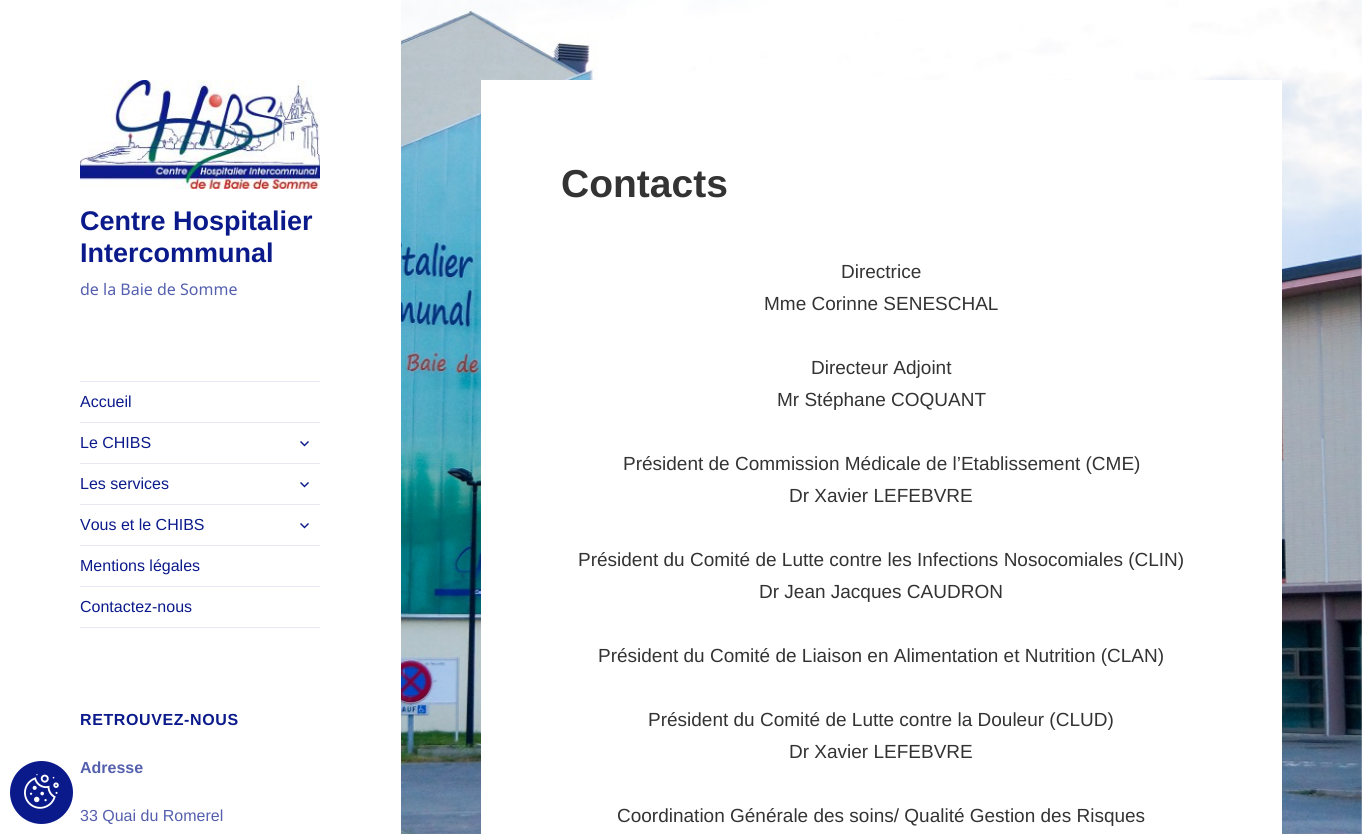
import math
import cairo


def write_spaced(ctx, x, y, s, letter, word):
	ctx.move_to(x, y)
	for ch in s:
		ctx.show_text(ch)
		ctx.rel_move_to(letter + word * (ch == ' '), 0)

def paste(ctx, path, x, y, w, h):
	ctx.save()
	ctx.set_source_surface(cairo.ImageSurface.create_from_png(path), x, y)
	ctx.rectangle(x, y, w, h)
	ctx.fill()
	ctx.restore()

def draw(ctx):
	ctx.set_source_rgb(1, 1, 1)
	ctx.paint()
	paste(ctx, 'media/1.png', 401, 0, 961, 834)
	ctx.set_source_rgb(0.043, 0.102, 0.545)
	ctx.arc(41.5, 792.5, 31.5, 0, 2 * math.pi)
	ctx.fill()
	paste(ctx, 'media/2.png', 24, 774, 35, 35)
	paste(ctx, 'media/3.png', 80, 80, 240, 109)
	ctx.select_font_face('Liberation Sans', cairo.FONT_SLANT_NORMAL, cairo.FONT_WEIGHT_BOLD)
	ctx.set_font_size(27)
	ctx.move_to(80, 230)
	ctx.show_text('Centre Hospitalier')
	ctx.move_to(80, 262)
	ctx.show_text('Intercommunal')
	ctx.select_font_face('Noto Sans')
	ctx.set_font_size(16)
	ctx.set_source_rgb(0.329, 0.373, 0.682)
	ctx.move_to(80, 295)
	ctx.show_text('de la Baie de Somme')
	ctx.set_source_rgb(0.906, 0.91, 0.953)
	ctx.rectangle(80, 381, 240, 1)
	ctx.fill()
	ctx.rectangle(80, 627, 240, 1)
	ctx.fill()
	ctx.select_font_face('Liberation Sans')
	ctx.set_source_rgb(0.043, 0.102, 0.545)
	ctx.move_to(80, 407)
	ctx.show_text('Accueil')
	ctx.set_source_rgb(0.906, 0.91, 0.953)
	ctx.rectangle(80, 422, 240, 1)
	ctx.fill()
	ctx.set_source_rgb(0.043, 0.102, 0.545)
	ctx.move_to(80, 448)
	ctx.show_text('Le CHIBS')
	paste(ctx, 'media/4.png', 300, 441, 9, 6)
	ctx.set_source_rgb(0.906, 0.91, 0.953)
	ctx.rectangle(80, 463, 240, 1)
	ctx.fill()
	ctx.set_source_rgb(0.043, 0.102, 0.545)
	ctx.move_to(80, 489)
	ctx.show_text('Les services')
	paste(ctx, 'media/4.png', 300, 482, 9, 6)
	ctx.set_source_rgb(0.906, 0.91, 0.953)
	ctx.rectangle(80, 504, 240, 1)
	ctx.fill()
	ctx.set_source_rgb(0.043, 0.102, 0.545)
	ctx.move_to(80, 530)
	ctx.show_text('Vous et le CHIBS')
	paste(ctx, 'media/4.png', 300, 523, 9, 6)
	ctx.set_source_rgb(0.906, 0.91, 0.953)
	ctx.rectangle(80, 545, 240, 1)
	ctx.fill()
	ctx.set_source_rgb(0.043, 0.102, 0.545)
	ctx.move_to(80, 571)
	ctx.show_text('Mentions légales')
	ctx.set_source_rgb(0.906, 0.91, 0.953)
	ctx.rectangle(80, 586, 240, 1)
	ctx.fill()
	ctx.set_source_rgb(0.043, 0.102, 0.545)
	ctx.move_to(80, 612)
	ctx.show_text('Contactez-nous')
	ctx.select_font_face('Liberation Sans', cairo.FONT_SLANT_NORMAL, cairo.FONT_WEIGHT_BOLD)
	write_spaced(ctx, 80, 725, 'RETROUVEZ-NOUS', 0.6, 0)
	ctx.set_source_rgb(0.329, 0.373, 0.682)
	ctx.move_to(80, 773)
	ctx.show_text('Adresse')
	ctx.select_font_face('Liberation Sans')
	ctx.move_to(80, 821)
	ctx.show_text('33 Quai du Romerel')
	ctx.set_source_rgb(1, 1, 1)
	ctx.rectangle(481, 80, 801, 754)
	ctx.fill()
	ctx.select_font_face('Liberation Sans', cairo.FONT_SLANT_NORMAL, cairo.FONT_WEIGHT_BOLD)
	ctx.set_font_size(39)
	ctx.set_source_rgb(0.2, 0.2, 0.2)
	ctx.move_to(561, 197)
	ctx.show_text('Contacts')
	ctx.select_font_face('Liberation Sans')
	ctx.set_font_size(19)
	for x, y, s in [
		(841, 278, 'Directrice'),
		(764, 310, 'Mme Corinne SENESCHAL'),
		(811, 374, 'Directeur Adjoint'),
		(777, 406, 'Mr Stéphane COQUANT'),
		(623, 470, 'Président de Commission Médicale de l’Etablissement (CME)'),
		(789, 502, 'Dr Xavier LEFEBVRE'),
		(578, 566, 'Président du Comité de Lutte contre les Infections Nosocomiales (CLIN)'),
		(759, 598, 'Dr Jean Jacques CAUDRON'),
		(598, 662, 'Président du Comité de Liaison en Alimentation et Nutrition (CLAN)'),
		(648, 726, 'Président du Comité de Lutte contre la Douleur (CLUD)'),
		(789, 758, 'Dr Xavier LEFEBVRE'),
		(617, 822, 'Coordination Générale des soins/ Qualité Gestion des Risques'),
	]:
		ctx.move_to(x, y)
		ctx.show_text(s)


surface = cairo.ImageSurface(cairo.FORMAT_RGB24, 1362, 834)
ctx = cairo.Context(surface)
options = cairo.FontOptions()
options.set_hint_metrics(cairo.HINT_METRICS_OFF)
options.set_hint_style(cairo.HINT_STYLE_NONE)
ctx.set_font_options(options)
ctx.set_miter_limit(4)
draw(ctx)
surface.write_to_png('image.png')
